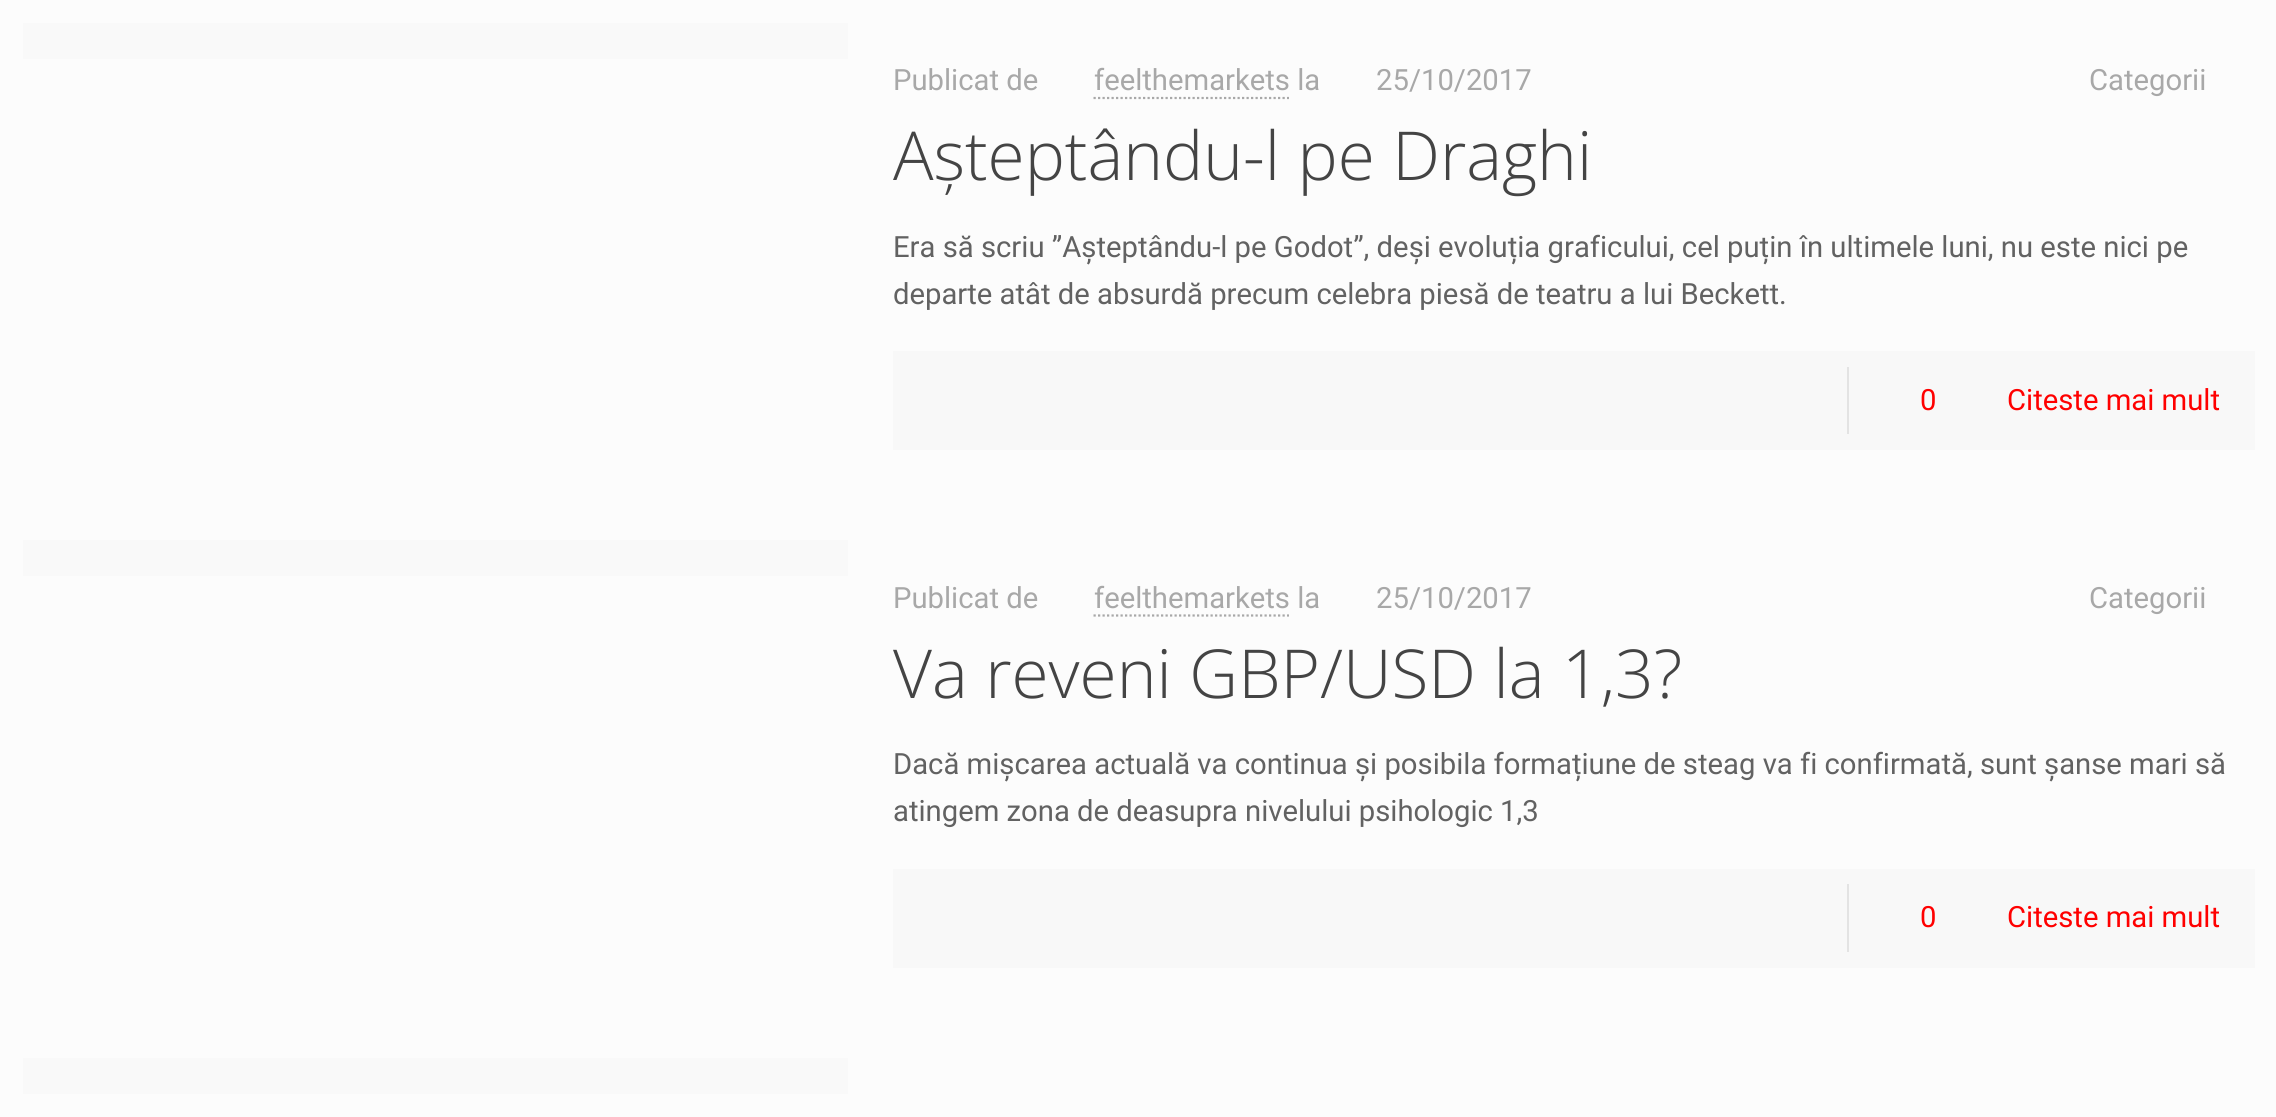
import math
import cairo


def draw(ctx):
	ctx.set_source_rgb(0.988, 0.988, 0.988)
	ctx.paint()
	ctx.set_source_rgb(0.973, 0.973, 0.973)
	ctx.rectangle(23, 23, 825, 36)
	ctx.fill()
	ctx.select_font_face('Roboto')
	ctx.set_font_size(29.25)
	ctx.set_source_rgb(0.659, 0.659, 0.659)
	ctx.move_to(893, 90)
	ctx.show_text('Publicat de')
	ctx.move_to(1094, 90)
	ctx.show_text('feelthemarkets la')
	ctx.new_path()
	ctx.move_to(1093.5, 98)
	ctx.line_to(1289, 98)
	ctx.set_line_width(2.2)
	ctx.set_dash([2.25, 2.25])
	ctx.stroke()
	ctx.move_to(1376, 90)
	ctx.show_text('25/10/2017')
	ctx.move_to(2089, 90)
	ctx.show_text('Categorii')
	ctx.select_font_face('Open Sans Light')
	ctx.set_font_size(67.5)
	ctx.set_source_rgb(0.267, 0.267, 0.267)
	ctx.move_to(893, 180)
	ctx.show_text('Așteptându-l pe Draghi')
	ctx.select_font_face('Roboto')
	ctx.set_font_size(29.25)
	ctx.set_source_rgb(0.384, 0.384, 0.384)
	ctx.move_to(893, 257)
	ctx.show_text('Era să scriu ”Așteptându-l pe Godot”, deși evoluția graficului, cel puțin în ultimele luni, nu este nici pe')
	ctx.move_to(893, 304)
	ctx.show_text('departe atât de absurdă precum celebra piesă de teatru a lui Beckett.')
	ctx.set_source_rgb(0.969, 0.969, 0.969)
	ctx.rectangle(893, 351, 1362, 99)
	ctx.fill()
	ctx.set_source_rgb(0.89, 0.89, 0.89)
	ctx.rectangle(1847, 367, 2, 67)
	ctx.fill()
	ctx.set_source_rgb(1, 0, 0)
	ctx.move_to(1920, 410)
	ctx.show_text('0')
	ctx.move_to(2007, 410)
	ctx.show_text('Citeste mai mult')
	ctx.set_source_rgb(0.973, 0.973, 0.973)
	ctx.rectangle(23, 540, 825, 36)
	ctx.fill()
	ctx.set_source_rgb(0.659, 0.659, 0.659)
	ctx.move_to(893, 608)
	ctx.show_text('Publicat de')
	ctx.move_to(1094, 608)
	ctx.show_text('feelthemarkets la')
	ctx.new_path()
	ctx.move_to(1093.5, 615.5)
	ctx.line_to(1289, 615.5)
	ctx.stroke()
	ctx.move_to(1376, 608)
	ctx.show_text('25/10/2017')
	ctx.move_to(2089, 608)
	ctx.show_text('Categorii')
	ctx.select_font_face('Open Sans Light')
	ctx.set_font_size(67.5)
	ctx.set_source_rgb(0.267, 0.267, 0.267)
	ctx.move_to(893, 698)
	ctx.show_text('Va reveni GBP/USD la 1,3?')
	ctx.select_font_face('Roboto')
	ctx.set_font_size(29.25)
	ctx.set_source_rgb(0.384, 0.384, 0.384)
	ctx.move_to(893, 774)
	ctx.show_text('Dacă mișcarea actuală va continua și posibila formațiune de steag va fi confirmată, sunt șanse mari să')
	ctx.move_to(893, 821)
	ctx.show_text('atingem zona de deasupra nivelului psihologic 1,3')
	ctx.set_source_rgb(0.969, 0.969, 0.969)
	ctx.rectangle(893, 869, 1362, 99)
	ctx.fill()
	ctx.set_source_rgb(0.89, 0.89, 0.89)
	ctx.rectangle(1847, 884, 2, 68)
	ctx.fill()
	ctx.set_source_rgb(1, 0, 0)
	ctx.move_to(1920, 927)
	ctx.show_text('0')
	ctx.move_to(2007, 927)
	ctx.show_text('Citeste mai mult')
	ctx.set_source_rgb(0.973, 0.973, 0.973)
	ctx.rectangle(23, 1058, 825, 36)
	ctx.fill()


surface = cairo.ImageSurface(cairo.FORMAT_RGB24, 2276, 1117)
ctx = cairo.Context(surface)
options = cairo.FontOptions()
options.set_hint_metrics(cairo.HINT_METRICS_OFF)
options.set_hint_style(cairo.HINT_STYLE_NONE)
ctx.set_font_options(options)
ctx.set_miter_limit(4)
draw(ctx)
surface.write_to_png('image.png')
